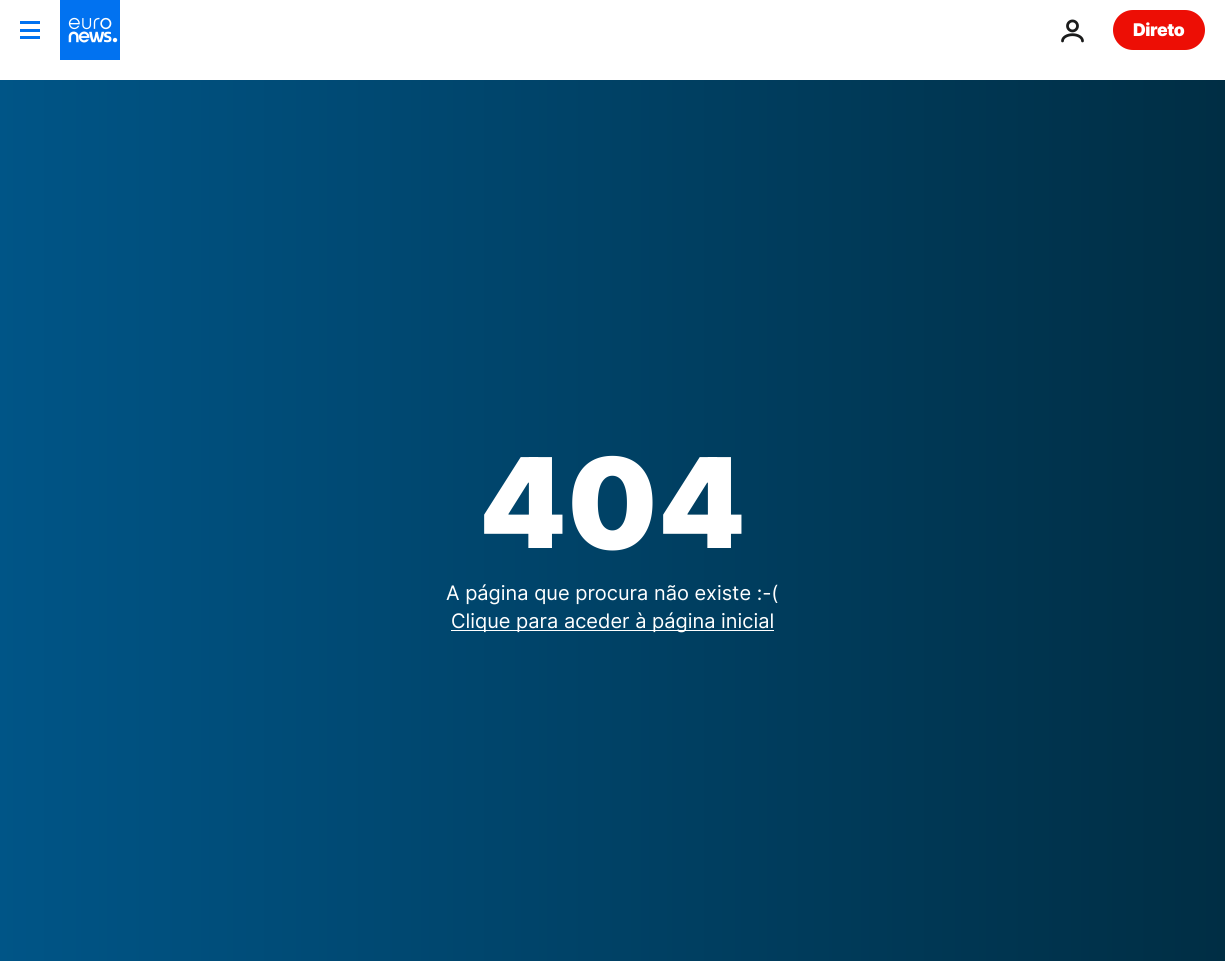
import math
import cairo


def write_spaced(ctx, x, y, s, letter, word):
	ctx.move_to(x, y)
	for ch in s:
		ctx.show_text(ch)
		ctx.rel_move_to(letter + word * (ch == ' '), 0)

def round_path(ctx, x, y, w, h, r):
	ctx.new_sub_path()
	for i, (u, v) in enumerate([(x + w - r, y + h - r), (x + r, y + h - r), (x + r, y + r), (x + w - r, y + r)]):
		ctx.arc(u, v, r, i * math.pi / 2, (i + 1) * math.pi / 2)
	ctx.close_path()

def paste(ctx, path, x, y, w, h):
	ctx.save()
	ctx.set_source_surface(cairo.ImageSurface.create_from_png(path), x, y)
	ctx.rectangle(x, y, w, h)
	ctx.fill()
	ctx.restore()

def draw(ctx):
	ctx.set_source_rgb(1, 1, 1)
	ctx.paint()
	ctx.set_source_rgb(0.004, 0.447, 0.941)
	ctx.rectangle(20, 21, 20, 3)
	ctx.rectangle(20, 29, 20, 3)
	ctx.rectangle(20, 36, 20, 3)
	ctx.fill()
	paste(ctx, 'media/1.png', 60, 0, 60, 60)
	paste(ctx, 'media/2.png', 1061, 19, 23, 24)
	ctx.set_source_rgb(0.929, 0.055, 0.02)
	round_path(ctx, 1113, 10, 92, 40, 20)
	ctx.fill()
	ctx.select_font_face('Inter Black')
	ctx.set_font_size(17.5)
	ctx.set_source_rgb(1, 1, 1)
	write_spaced(ctx, 1133, 36, 'Direto', -0.5, 0)
	gradient = cairo.LinearGradient(1225, 531, 0, 531)
	gradient.add_color_stop_rgba(0, 0, 0.18, 0.267, 1)
	gradient.add_color_stop_rgba(1, 0, 0.333, 0.529, 1)
	ctx.set_source(gradient)
	ctx.rectangle(0, 80, 1225, 881)
	ctx.fill()
	ctx.set_font_size(125)
	ctx.set_source_rgb(1, 1, 1)
	ctx.move_to(479, 548)
	ctx.show_text('404')
	ctx.select_font_face('Inter')
	ctx.set_font_size(20)
	ctx.move_to(446, 600)
	ctx.show_text('A página que procura não existe :-(')
	ctx.rectangle(451, 630, 323, 1)
	ctx.fill()
	ctx.move_to(451, 628)
	ctx.show_text('Clique para aceder à página inicial')


surface = cairo.ImageSurface(cairo.FORMAT_RGB24, 1225, 961)
ctx = cairo.Context(surface)
options = cairo.FontOptions()
options.set_hint_metrics(cairo.HINT_METRICS_OFF)
options.set_hint_style(cairo.HINT_STYLE_NONE)
ctx.set_font_options(options)
ctx.set_miter_limit(4)
draw(ctx)
surface.write_to_png('image.png')
